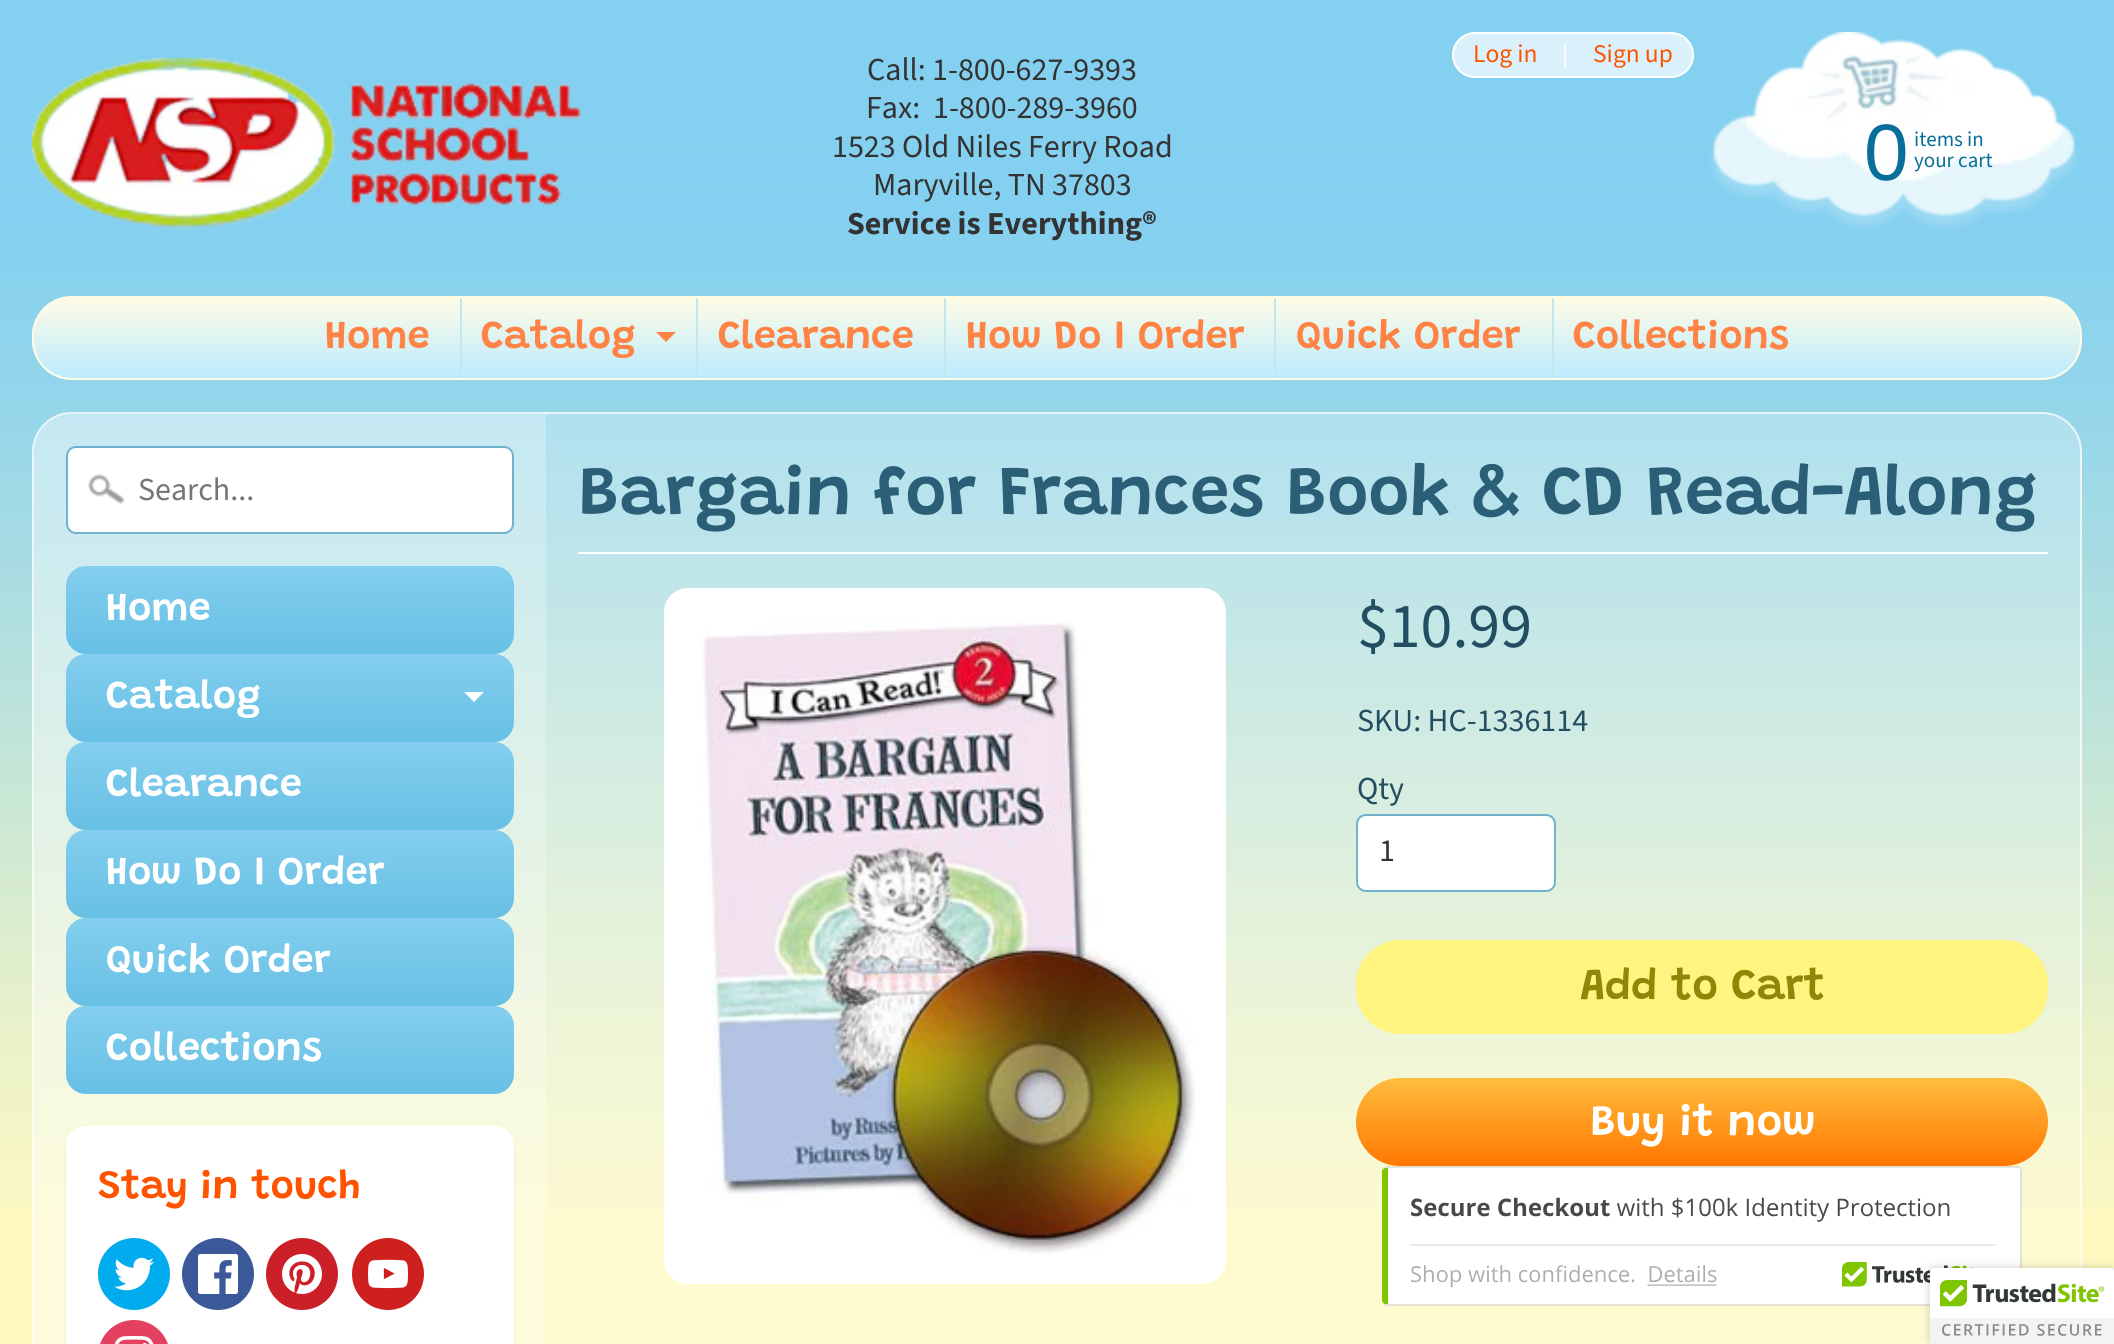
import math
import cairo


def round_path(ctx, x, y, w, h, r):
	ctx.new_sub_path()
	for i, (u, v) in enumerate([(x + w - r, y + h - r), (x + r, y + h - r), (x + r, y + r), (x + w - r, y + r)]):
		ctx.arc(u, v, r, i * math.pi / 2, (i + 1) * math.pi / 2)
	ctx.close_path()

def blur_box(ctx, x, y, w, h, r, blur, alpha):
	ctx.push_group_with_content(cairo.CONTENT_ALPHA)
	ctx.set_operator(cairo.OPERATOR_SOURCE)
	for i in range(15, -16, -2):
		e = blur * i / 6
		if min(w, h) + 2 * e > 0:
			ctx.set_source_rgba(0, 0, 0, alpha * math.erfc((i - 1) / 8.5) / 2)
			round_path(ctx, x - e, y - e, w + 2 * e, h + 2 * e, max(0, min(r + e + blur * .6, min(w, h) / 2 + e)))
			ctx.fill()
	ctx.mask(ctx.pop_group())

def paste(ctx, path, x, y, w, h):
	ctx.save()
	ctx.set_source_surface(cairo.ImageSurface.create_from_png(path), x, y)
	ctx.rectangle(x, y, w, h)
	ctx.fill()
	ctx.restore()

def draw(ctx):
	ctx.set_source_rgb(1, 0.976, 0.757)
	ctx.paint()
	paste(ctx, 'media/1.png', 0, 0, 2114, 1209)
	paste(ctx, 'media/2.png', 32, 58, 549, 171)
	ctx.select_font_face('Source Sans Pro')
	ctx.set_font_size(32)
	ctx.set_source_rgb(0.2, 0.2, 0.2)
	for x, y, s in [
		(867, 80, 'Call: 1-800-627-9393'),
		(866, 118, 'Fax:  1-800-289-3960'),
		(832, 157, '1523 Old Niles Ferry Road'),
		(873, 195, 'Maryville, TN 37803'),
	]:
		ctx.move_to(x, y)
		ctx.show_text(s)
	ctx.select_font_face('Source Sans Pro', cairo.FONT_SLANT_NORMAL, cairo.FONT_WEIGHT_BOLD)
	ctx.move_to(847, 234)
	ctx.show_text('Service is Everything®')
	ctx.set_source_rgb(0.855, 0.945, 0.984)
	round_path(ctx, 1453, 33, 240, 44, 22)
	ctx.fill_preserve()
	ctx.set_source_rgb(1, 1, 1)
	ctx.stroke()
	ctx.select_font_face('Source Sans Pro')
	ctx.set_font_size(25.5)
	ctx.set_source_rgb(1, 0.325, 0)
	ctx.move_to(1473, 62)
	ctx.show_text('Log in')
	ctx.set_source_rgb(1, 1, 1)
	ctx.move_to(1562, 62)
	ctx.show_text('|')
	ctx.set_source_rgb(1, 0.325, 0)
	ctx.move_to(1593, 62)
	ctx.show_text('Sign up')
	paste(ctx, 'media/3.png', 1710, 32, 368, 197)
	ctx.select_font_face('Liberation Sans')
	ctx.set_font_size(80)
	ctx.set_source_rgb(0.039, 0.431, 0.6)
	ctx.move_to(1864, 180)
	ctx.show_text('0')
	ctx.select_font_face('Source Sans Pro')
	ctx.set_font_size(21)
	ctx.move_to(1914, 146)
	ctx.show_text('items in')
	ctx.move_to(1914, 167)
	ctx.show_text('your cart')
	ctx.save()
	round_path(ctx, 32, 296, 2050, 84, 40)
	ctx.clip()
	gradient = cairo.LinearGradient(1057, 298, 1057, 378)
	gradient.add_color_stop_rgba(0, 1, 0.988, 0.898, 1)
	gradient.add_color_stop_rgba(1, 0.737, 0.922, 1, 1)
	ctx.set_source(gradient)
	ctx.rectangle(32, 298, 2050, 80)
	ctx.fill()
	ctx.restore()
	round_path(ctx, 33, 297, 2048, 82, 39)
	ctx.set_source_rgb(1, 0.988, 0.898)
	ctx.stroke()
	ctx.select_font_face('Grandstander SemiBold')
	ctx.set_font_size(40)
	ctx.set_source_rgb(0.996, 0.514, 0.271)
	ctx.move_to(325, 348)
	ctx.show_text('Home')
	ctx.set_source_rgb(0.765, 0.906, 0.918)
	ctx.rectangle(460, 298, 2, 80)
	ctx.fill()
	ctx.set_source_rgb(0.996, 0.514, 0.271)
	ctx.move_to(481, 348)
	ctx.show_text('Catalog')
	ctx.new_path()
	ctx.move_to(656, 332)
	ctx.line_to(676, 332)
	ctx.line_to(666, 342)
	ctx.close_path()
	ctx.fill()
	ctx.set_source_rgb(0.765, 0.906, 0.918)
	ctx.rectangle(696, 298, 2, 80)
	ctx.fill()
	ctx.set_source_rgb(0.996, 0.514, 0.271)
	ctx.move_to(718, 348)
	ctx.show_text('Clearance')
	ctx.set_source_rgb(0.765, 0.906, 0.918)
	ctx.rectangle(944, 298, 2, 80)
	ctx.fill()
	ctx.set_source_rgb(0.996, 0.514, 0.271)
	ctx.move_to(966, 348)
	ctx.show_text('How Do I Order')
	ctx.set_source_rgb(0.765, 0.906, 0.918)
	ctx.rectangle(1274, 298, 2, 80)
	ctx.fill()
	ctx.set_source_rgb(0.996, 0.514, 0.271)
	ctx.move_to(1296, 348)
	ctx.show_text('Quick Order')
	ctx.set_source_rgb(0.765, 0.906, 0.918)
	ctx.rectangle(1552, 298, 2, 80)
	ctx.fill()
	ctx.set_source_rgb(0.996, 0.514, 0.271)
	ctx.move_to(1573, 348)
	ctx.show_text('Collections')
	ctx.set_source_rgba(1, 1, 1, 0.25)
	round_path(ctx, 32, 412, 2050, 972, 40)
	ctx.fill()
	round_path(ctx, 33, 413, 2048, 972, 39)
	ctx.set_source_rgba(1, 1, 1, 0.7)
	ctx.stroke()
	ctx.set_source_rgba(1, 1, 1, 0.25)
	ctx.new_path()
	ctx.move_to(72, 414)
	ctx.line_to(546, 414)
	ctx.line_to(546, 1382)
	ctx.line_to(34, 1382)
	ctx.line_to(34, 452)
	ctx.curve_to(34, 431, 51, 414, 72, 414)
	ctx.close_path()
	ctx.fill()
	ctx.set_source_rgb(1, 1, 1)
	round_path(ctx, 66, 446, 448, 88, 10)
	ctx.fill()
	paste(ctx, 'media/4.png', 88, 474, 36, 30)
	round_path(ctx, 67, 447, 446, 86, 9)
	ctx.set_source_rgb(0.439, 0.694, 0.8)
	ctx.stroke()
	ctx.select_font_face('Source Sans Pro')
	ctx.set_font_size(32)
	ctx.set_source_rgb(0.459, 0.459, 0.459)
	ctx.move_to(138, 500)
	ctx.show_text('Search...')
	gradient = cairo.LinearGradient(290, 566, 290, 654)
	gradient.add_color_stop_rgba(0, 0.514, 0.808, 0.933, 1)
	gradient.add_color_stop_rgba(1, 0.404, 0.753, 0.898, 1)
	ctx.set_source(gradient)
	round_path(ctx, 66, 566, 448, 88, 20)
	ctx.fill()
	ctx.select_font_face('Grandstander SemiBold')
	ctx.set_font_size(40)
	ctx.set_source_rgb(1, 1, 1)
	ctx.move_to(106, 620)
	ctx.show_text('Home')
	gradient = cairo.LinearGradient(290, 654, 290, 742)
	gradient.add_color_stop_rgba(0, 0.514, 0.808, 0.933, 1)
	gradient.add_color_stop_rgba(1, 0.404, 0.753, 0.898, 1)
	ctx.set_source(gradient)
	round_path(ctx, 66, 654, 448, 88, 20)
	ctx.fill()
	ctx.set_source_rgb(1, 1, 1)
	ctx.move_to(106, 708)
	ctx.show_text('Catalog')
	ctx.new_path()
	ctx.move_to(464, 692)
	ctx.line_to(484, 692)
	ctx.line_to(474, 702)
	ctx.close_path()
	ctx.fill()
	gradient = cairo.LinearGradient(290, 742, 290, 830)
	gradient.add_color_stop_rgba(0, 0.514, 0.808, 0.933, 1)
	gradient.add_color_stop_rgba(1, 0.404, 0.753, 0.898, 1)
	ctx.set_source(gradient)
	round_path(ctx, 66, 742, 448, 88, 20)
	ctx.fill()
	ctx.set_source_rgb(1, 1, 1)
	ctx.move_to(106, 796)
	ctx.show_text('Clearance')
	gradient = cairo.LinearGradient(290, 830, 290, 918)
	gradient.add_color_stop_rgba(0, 0.514, 0.808, 0.933, 1)
	gradient.add_color_stop_rgba(1, 0.404, 0.753, 0.898, 1)
	ctx.set_source(gradient)
	round_path(ctx, 66, 830, 448, 88, 20)
	ctx.fill()
	ctx.set_source_rgb(1, 1, 1)
	ctx.move_to(106, 884)
	ctx.show_text('How Do I Order')
	gradient = cairo.LinearGradient(290, 918, 290, 1006)
	gradient.add_color_stop_rgba(0, 0.514, 0.808, 0.933, 1)
	gradient.add_color_stop_rgba(1, 0.404, 0.753, 0.898, 1)
	ctx.set_source(gradient)
	round_path(ctx, 66, 918, 448, 88, 20)
	ctx.fill()
	ctx.set_source_rgb(1, 1, 1)
	ctx.move_to(106, 972)
	ctx.show_text('Quick Order')
	gradient = cairo.LinearGradient(290, 1006, 290, 1094)
	gradient.add_color_stop_rgba(0, 0.514, 0.808, 0.933, 1)
	gradient.add_color_stop_rgba(1, 0.404, 0.753, 0.898, 1)
	ctx.set_source(gradient)
	round_path(ctx, 66, 1006, 448, 88, 20)
	ctx.fill()
	ctx.set_source_rgb(1, 1, 1)
	ctx.move_to(106, 1060)
	ctx.show_text('Collections')
	ctx.set_source_rgb(0, 0, 0)
	blur_box(ctx, 66, 1128, 448, 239, 20, 1, 0.1)
	ctx.set_source_rgb(1, 1, 1)
	round_path(ctx, 66, 1126, 448, 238, 20)
	ctx.fill()
	ctx.set_source_rgb(1, 0.325, 0)
	ctx.move_to(98, 1198)
	ctx.show_text('Stay in touch')
	ctx.set_source_rgb(0, 0.675, 0.929)
	ctx.new_path()
	ctx.arc(134, 1274, 36, 0, 2 * math.pi)
	ctx.fill()
	paste(ctx, 'media/5.png', 114, 1257, 40, 34)
	ctx.set_source_rgb(0.231, 0.349, 0.596)
	ctx.arc(218, 1274, 36, 0, 2 * math.pi)
	ctx.fill()
	paste(ctx, 'media/6.png', 198, 1254, 40, 40)
	ctx.set_source_rgb(0.796, 0.125, 0.153)
	ctx.arc(302, 1274, 36, 0, 2 * math.pi)
	ctx.fill()
	paste(ctx, 'media/7.png', 282, 1254, 40, 40)
	ctx.set_source_rgb(0.804, 0.125, 0.122)
	ctx.arc(388, 1274, 36, 0, 2 * math.pi)
	ctx.fill()
	paste(ctx, 'media/8.png', 368, 1259, 40, 30)
	ctx.set_source_rgb(0.894, 0.251, 0.373)
	round_path(ctx, 98, 1320, 72, 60, 36)
	ctx.fill()
	paste(ctx, 'media/9.png', 114, 1336, 40, 8)
	ctx.set_source_rgb(1, 1, 1)
	ctx.rectangle(578, 552, 1470, 2)
	ctx.fill()
	ctx.set_font_size(70.4)
	ctx.set_source_rgb(0.169, 0.373, 0.467)
	ctx.move_to(578, 514)
	ctx.show_text('Bargain for Frances Book & CD Read-Along')
	ctx.set_source_rgb(1, 1, 1)
	round_path(ctx, 664, 588, 562, 696, 24)
	ctx.fill()
	paste(ctx, 'media/10.png', 702, 622, 494, 633)
	ctx.select_font_face('Source Sans Pro')
	ctx.set_font_size(64)
	ctx.set_source_rgb(0.137, 0.302, 0.38)
	ctx.move_to(1357, 647)
	ctx.show_text('$10.99')
	ctx.set_font_size(32)
	ctx.move_to(1357, 731)
	ctx.show_text('SKU: HC-1336114')
	ctx.move_to(1357, 799)
	ctx.show_text('Qty')
	ctx.set_source_rgb(1, 1, 1)
	round_path(ctx, 1357, 815, 198, 76, 9)
	ctx.fill_preserve()
	ctx.set_source_rgb(0.439, 0.694, 0.8)
	ctx.stroke()
	ctx.set_source_rgb(0.2, 0.2, 0.2)
	ctx.move_to(1379, 861)
	ctx.show_text('1')
	ctx.set_source_rgb(1, 0.957, 0.502)
	round_path(ctx, 1356, 940, 692, 94, 44)
	ctx.fill()
	ctx.select_font_face('Grandstander SemiBold')
	ctx.set_font_size(44)
	ctx.set_source_rgb(0.569, 0.525, 0.031)
	ctx.move_to(1580, 999)
	ctx.show_text('Add to Cart')
	gradient = cairo.LinearGradient(1702, 1078, 1702, 1166)
	gradient.add_color_stop_rgba(0, 1, 0.741, 0.243, 1)
	gradient.add_color_stop_rgba(1, 1, 0.467, 0, 1)
	ctx.set_source(gradient)
	round_path(ctx, 1356, 1078, 692, 88, 44)
	ctx.fill()
	ctx.set_source_rgb(1, 1, 1)
	ctx.move_to(1590, 1135)
	ctx.show_text('Buy it now')
	paste(ctx, 'media/11.png', 1382, 1166, 640, 140)
	ctx.set_source_rgb(0, 0, 0)
	blur_box(ctx, 1930, 1268, 184, 76, 4, 5, 0.2)
	ctx.set_source_rgb(1, 1, 1)
	ctx.new_path()
	ctx.move_to(1934, 1268)
	ctx.line_to(2114, 1268)
	ctx.line_to(2114, 1344)
	ctx.line_to(1930, 1344)
	ctx.line_to(1930, 1272)
	ctx.curve_to(1930, 1270, 1932, 1268, 1934, 1268)
	ctx.close_path()
	ctx.fill()
	paste(ctx, 'media/12.png', 1930, 1268, 184, 76)


surface = cairo.ImageSurface(cairo.FORMAT_RGB24, 2114, 1344)
ctx = cairo.Context(surface)
options = cairo.FontOptions()
options.set_hint_metrics(cairo.HINT_METRICS_OFF)
options.set_hint_style(cairo.HINT_STYLE_NONE)
ctx.set_font_options(options)
ctx.set_miter_limit(4)
draw(ctx)
surface.write_to_png('image.png')
